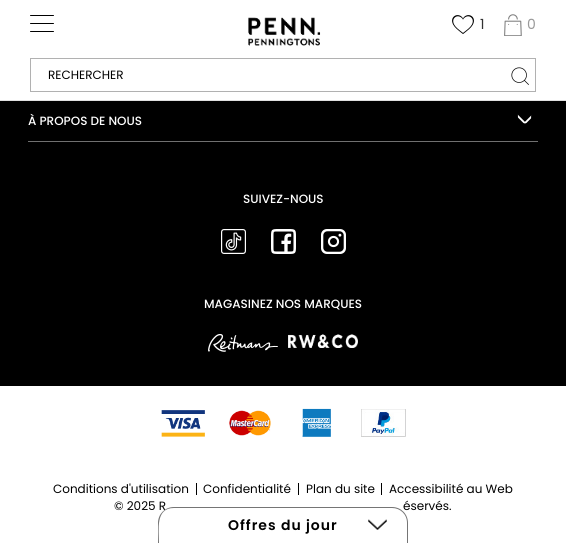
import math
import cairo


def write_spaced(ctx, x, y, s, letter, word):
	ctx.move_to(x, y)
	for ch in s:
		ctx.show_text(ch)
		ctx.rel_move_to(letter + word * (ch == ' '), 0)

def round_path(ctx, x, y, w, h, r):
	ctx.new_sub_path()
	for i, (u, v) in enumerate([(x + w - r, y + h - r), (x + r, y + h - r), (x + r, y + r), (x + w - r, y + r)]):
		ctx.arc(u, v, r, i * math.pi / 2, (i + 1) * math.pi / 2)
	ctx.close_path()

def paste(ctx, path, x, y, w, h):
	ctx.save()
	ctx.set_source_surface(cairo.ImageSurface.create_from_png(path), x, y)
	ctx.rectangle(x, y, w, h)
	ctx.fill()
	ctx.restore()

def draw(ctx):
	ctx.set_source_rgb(1, 1, 1)
	ctx.paint()
	ctx.set_source_rgb(0.878, 0.878, 0.878)
	ctx.rectangle(0, 100, 566, 1)
	ctx.fill()
	ctx.set_source_rgb(0, 0, 0)
	round_path(ctx, 30, 31, 24, 1, 0.5)
	ctx.fill()
	round_path(ctx, 30, 15, 24, 1, 0.5)
	ctx.fill()
	round_path(ctx, 30, 23, 24, 1, 0.5)
	ctx.fill()
	paste(ctx, 'media/1.png', 248, 17, 73, 29)
	paste(ctx, 'media/2.png', 452, 15, 22, 19)
	ctx.select_font_face('Poppins')
	ctx.set_font_size(14)
	ctx.set_source_rgb(0.2, 0.2, 0.2)
	ctx.move_to(480, 29)
	ctx.show_text('1')
	paste(ctx, 'media/3.png', 504, 14, 18, 22)
	ctx.set_source_rgb(0.6, 0.6, 0.6)
	ctx.move_to(527, 29)
	ctx.show_text('0')
	ctx.rectangle(30.5, 58.5, 505, 33)
	ctx.set_source_rgb(0.694, 0.694, 0.694)
	ctx.set_line_width(1)
	ctx.stroke()
	ctx.set_font_size(12)
	ctx.set_source_rgb(0, 0, 0)
	ctx.move_to(48, 79)
	ctx.show_text('RECHERCHER')
	paste(ctx, 'media/4.png', 511, 67, 18, 18)
	ctx.rectangle(0, 101, 566, 285)
	ctx.fill()
	ctx.set_source_rgb(0.439, 0.439, 0.439)
	ctx.rectangle(28, 141, 510, 1)
	ctx.fill()
	ctx.select_font_face('Poppins Medium')
	ctx.set_source_rgb(1, 1, 1)
	ctx.move_to(28, 125)
	ctx.show_text('À PROPOS DE NOUS')
	paste(ctx, 'media/5.png', 517, 114, 15, 10)
	ctx.move_to(243, 203)
	ctx.show_text('SUIVEZ-NOUS')
	paste(ctx, 'media/6.png', 221, 229, 25, 25)
	paste(ctx, 'media/7.png', 271, 229, 25, 25)
	paste(ctx, 'media/8.png', 321, 229, 25, 25)
	ctx.move_to(204, 308)
	ctx.show_text('MAGASINEZ NOS MARQUES')
	paste(ctx, 'media/9.png', 208, 334, 70, 18)
	paste(ctx, 'media/10.png', 288, 334, 70, 14)
	paste(ctx, 'media/11.png', 161, 410, 44, 27)
	paste(ctx, 'media/12.png', 229, 410, 42, 26)
	paste(ctx, 'media/13.png', 302, 408, 29, 29)
	paste(ctx, 'media/14.png', 361, 409, 45, 28)
	ctx.select_font_face('Poppins')
	ctx.set_source_rgb(0, 0, 0)
	ctx.move_to(53, 493)
	ctx.show_text('Conditions d\'utilisation')
	ctx.rectangle(196, 483, 1, 12)
	ctx.fill()
	ctx.move_to(203, 493)
	ctx.show_text('Confidentialité')
	ctx.rectangle(298, 483, 1, 12)
	ctx.fill()
	ctx.move_to(306, 493)
	ctx.show_text('Plan du site')
	ctx.rectangle(381, 483, 1, 12)
	ctx.fill()
	for x, y, s in [
		(389, 493, 'Accessibilité au Web'),
		(114, 510, '© 2025 R'),
		(403, 510, 'éservés.'),
	]:
		ctx.move_to(x, y)
		ctx.show_text(s)
	ctx.set_source_rgb(1, 1, 1)
	ctx.new_path()
	ctx.move_to(174, 507)
	ctx.line_to(392, 507)
	ctx.curve_to(401, 507, 408, 514, 408, 523)
	ctx.line_to(408, 543)
	ctx.line_to(158, 543)
	ctx.line_to(158, 523)
	ctx.curve_to(158, 514, 165, 507, 174, 507)
	ctx.close_path()
	ctx.fill()
	ctx.set_source_rgb(0.459, 0.459, 0.459)
	ctx.set_fill_rule(cairo.FILL_RULE_EVEN_ODD)
	ctx.new_path()
	ctx.move_to(174, 507)
	ctx.line_to(392, 507)
	ctx.curve_to(401, 507, 408, 514, 408, 523)
	ctx.line_to(408, 543)
	ctx.line_to(158, 543)
	ctx.line_to(158, 523)
	ctx.curve_to(158, 514, 165, 507, 174, 507)
	ctx.close_path()
	ctx.move_to(174, 508)
	ctx.line_to(392, 508)
	ctx.curve_to(400, 508, 407, 514, 407, 523)
	ctx.line_to(407, 543)
	ctx.line_to(159, 543)
	ctx.curve_to(159, 530, 155, 508, 174, 508)
	ctx.close_path()
	ctx.fill()
	ctx.select_font_face('Poppins SemiBold')
	ctx.set_font_size(14)
	ctx.set_source_rgb(0, 0, 0)
	write_spaced(ctx, 228, 530, 'Offres du jour', 1, 0)
	paste(ctx, 'media/15.png', 368, 519, 19, 11)


surface = cairo.ImageSurface(cairo.FORMAT_RGB24, 566, 543)
ctx = cairo.Context(surface)
options = cairo.FontOptions()
options.set_hint_metrics(cairo.HINT_METRICS_OFF)
options.set_hint_style(cairo.HINT_STYLE_NONE)
ctx.set_font_options(options)
ctx.set_miter_limit(4)
draw(ctx)
surface.write_to_png('image.png')
